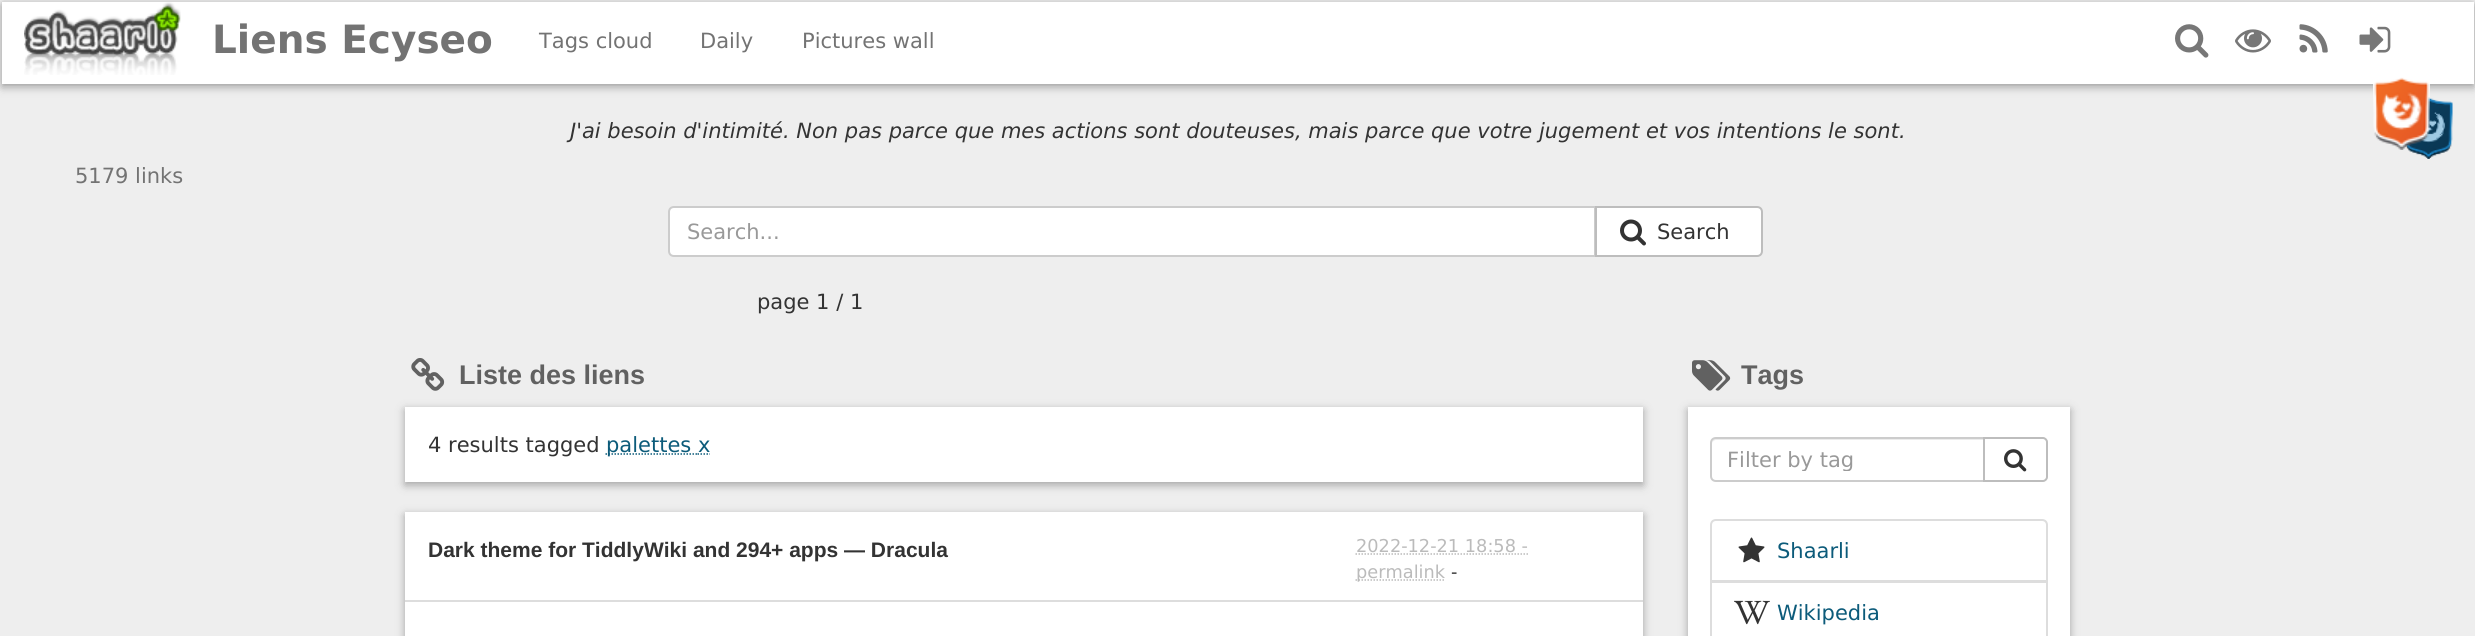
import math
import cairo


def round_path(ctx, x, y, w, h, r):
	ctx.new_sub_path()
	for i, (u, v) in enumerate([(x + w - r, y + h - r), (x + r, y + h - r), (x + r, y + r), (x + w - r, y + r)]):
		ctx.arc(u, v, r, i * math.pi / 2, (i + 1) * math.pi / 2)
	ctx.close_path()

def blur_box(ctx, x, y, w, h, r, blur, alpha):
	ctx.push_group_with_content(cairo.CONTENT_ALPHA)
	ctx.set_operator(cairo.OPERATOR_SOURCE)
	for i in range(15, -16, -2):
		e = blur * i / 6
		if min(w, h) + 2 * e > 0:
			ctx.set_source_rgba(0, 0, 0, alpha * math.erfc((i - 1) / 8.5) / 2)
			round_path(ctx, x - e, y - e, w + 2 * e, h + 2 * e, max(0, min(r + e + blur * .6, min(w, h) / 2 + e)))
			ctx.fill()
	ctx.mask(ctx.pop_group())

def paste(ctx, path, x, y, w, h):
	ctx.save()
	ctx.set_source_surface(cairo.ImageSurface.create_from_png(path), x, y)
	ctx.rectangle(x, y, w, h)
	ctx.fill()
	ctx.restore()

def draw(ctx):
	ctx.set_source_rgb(0.933, 0.933, 0.933)
	ctx.paint()
	round_path(ctx, 1, 1, 2473, 84, 5)
	ctx.set_source_rgb(0.906, 0.906, 0.906)
	ctx.stroke()
	ctx.set_source_rgb(0.196, 0.196, 0.196)
	blur_box(ctx, 2, 5, 2472, 82, 0, 4.5, 0.4)
	ctx.set_source_rgb(1, 1, 1)
	ctx.rectangle(2, 2, 2472, 82)
	ctx.fill()
	paste(ctx, 'media/1.png', 24, 2, 157, 73)
	ctx.select_font_face('DejaVu Sans', cairo.FONT_SLANT_NORMAL, cairo.FONT_WEIGHT_BOLD)
	ctx.set_font_size(39)
	ctx.set_source_rgb(0.451, 0.451, 0.451)
	ctx.move_to(212, 53)
	ctx.show_text('Liens Ecyseo')
	ctx.select_font_face('DejaVu Sans')
	ctx.set_font_size(21)
	for x, y, s in [
		(539, 48, 'Tags cloud'),
		(700, 48, 'Daily'),
		(802, 48, 'Pictures wall'),
	]:
		ctx.move_to(x, y)
		ctx.show_text(s)
	paste(ctx, 'media/2.png', 2175, 24, 34, 34)
	paste(ctx, 'media/3.png', 2235, 29, 36, 24)
	paste(ctx, 'media/4.png', 2299, 24, 29, 29)
	paste(ctx, 'media/5.png', 2359, 26, 32, 27)
	paste(ctx, 'media/7.png', 2405, 97, 48, 62)
	paste(ctx, 'media/6.png', 2373, 77, 57, 73)
	ctx.select_font_face('DejaVu Sans', cairo.FONT_SLANT_ITALIC)
	ctx.set_source_rgb(0.2, 0.2, 0.2)
	ctx.move_to(570, 138)
	ctx.show_text('J\'ai besoin d\'intimité. Non pas parce que mes actions sont douteuses, mais parce que votre jugement et vos intentions le sont.')
	ctx.select_font_face('DejaVu Sans')
	ctx.set_source_rgb(0.451, 0.451, 0.451)
	ctx.move_to(75, 183)
	ctx.show_text('5179 links')
	ctx.set_source_rgb(1, 1, 1)
	ctx.new_path()
	ctx.move_to(674, 207)
	ctx.line_to(1595, 207)
	ctx.line_to(1595, 256)
	ctx.line_to(674, 256)
	ctx.curve_to(671, 256, 669, 254, 669, 251)
	ctx.line_to(669, 212)
	ctx.curve_to(669, 209, 671, 207, 674, 207)
	ctx.close_path()
	ctx.fill_preserve()
	ctx.set_source_rgb(0.8, 0.8, 0.8)
	ctx.stroke()
	ctx.set_source_rgb(0.6, 0.6, 0.6)
	ctx.move_to(687, 239)
	ctx.show_text('Search...')
	ctx.set_source_rgb(1, 1, 1)
	ctx.new_path()
	ctx.move_to(1596, 207)
	ctx.line_to(1757, 207)
	ctx.curve_to(1760, 207, 1762, 209, 1762, 212)
	ctx.line_to(1762, 251)
	ctx.curve_to(1762, 254, 1760, 256, 1757, 256)
	ctx.line_to(1596, 256)
	ctx.close_path()
	ctx.fill_preserve()
	ctx.set_source_rgb(0.741, 0.741, 0.741)
	ctx.stroke()
	paste(ctx, 'media/8.png', 1620, 219, 26, 27)
	ctx.set_source_rgb(0.2, 0.2, 0.2)
	ctx.move_to(1657, 239)
	ctx.show_text('Search')
	ctx.move_to(757, 309)
	ctx.show_text('page 1 / 1')
	paste(ctx, 'media/9.png', 411, 358, 34, 33)
	ctx.select_font_face('Liberation Sans', cairo.FONT_SLANT_NORMAL, cairo.FONT_WEIGHT_BOLD)
	ctx.set_font_size(27)
	ctx.set_source_rgb(0.38, 0.38, 0.38)
	ctx.move_to(459, 384)
	ctx.show_text('Liste des liens')
	ctx.set_source_rgb(0.196, 0.196, 0.196)
	blur_box(ctx, 405, 410, 1238, 75, 0, 4.5, 0.4)
	ctx.set_source_rgb(1, 1, 1)
	ctx.rectangle(405, 407, 1238, 75)
	ctx.fill()
	ctx.select_font_face('DejaVu Sans')
	ctx.set_font_size(21)
	ctx.set_source_rgb(0.2, 0.2, 0.2)
	ctx.move_to(428, 452)
	ctx.show_text('4 results tagged')
	ctx.new_path()
	ctx.move_to(605.5, 454)
	ctx.line_to(697.5, 454)
	ctx.set_source_rgb(0.047, 0.357, 0.478)
	ctx.set_line_width(1.5)
	ctx.set_dash([1.5, 1.5])
	ctx.stroke()
	ctx.move_to(606, 452)
	ctx.show_text('palettes x')
	ctx.new_path()
	ctx.move_to(697.5, 454)
	ctx.line_to(710, 454)
	ctx.stroke()
	ctx.set_source_rgb(0.196, 0.196, 0.196)
	blur_box(ctx, 405, 515, 1238, 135, 0, 4.5, 0.4)
	ctx.set_source_rgb(1, 1, 1)
	ctx.rectangle(405, 512, 1238, 124)
	ctx.fill()
	ctx.set_source_rgb(0.867, 0.867, 0.867)
	ctx.rectangle(405, 600, 1238, 2)
	ctx.fill()
	ctx.select_font_face('Liberation Sans', cairo.FONT_SLANT_NORMAL, cairo.FONT_WEIGHT_BOLD)
	ctx.set_source_rgb(0.2, 0.2, 0.2)
	ctx.move_to(428, 557)
	ctx.show_text('Dark theme for TiddlyWiki and 294+ apps — Dracula')
	ctx.select_font_face('DejaVu Sans')
	ctx.set_font_size(17.75)
	ctx.set_source_rgb(0.733, 0.733, 0.733)
	ctx.move_to(1356, 552)
	ctx.show_text('2022-12-21 18:58 -')
	ctx.new_path()
	ctx.move_to(1355.5, 554)
	ctx.line_to(1528.5, 554)
	ctx.stroke()
	ctx.new_path()
	ctx.move_to(1355.5, 580)
	ctx.line_to(1445, 580)
	ctx.stroke()
	ctx.move_to(1356, 578)
	ctx.show_text('permalink')
	ctx.set_source_rgb(0.2, 0.2, 0.2)
	ctx.move_to(1451, 578)
	ctx.show_text('-')
	paste(ctx, 'media/10.png', 1692, 360, 39, 31)
	ctx.select_font_face('Liberation Sans', cairo.FONT_SLANT_NORMAL, cairo.FONT_WEIGHT_BOLD)
	ctx.set_font_size(27)
	ctx.set_source_rgb(0.38, 0.38, 0.38)
	ctx.move_to(1741, 384)
	ctx.show_text('Tags')
	ctx.set_source_rgb(0.196, 0.196, 0.196)
	blur_box(ctx, 1688, 410, 382, 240, 0, 4.5, 0.4)
	ctx.set_source_rgb(1, 1, 1)
	ctx.rectangle(1688, 407, 382, 229)
	ctx.fill()
	ctx.set_source_rgb(0.925, 0.925, 0.925)
	ctx.new_path()
	ctx.move_to(1716, 440)
	ctx.line_to(1983, 440)
	ctx.line_to(1983, 438)
	ctx.line_to(1717, 438)
	ctx.curve_to(1714, 438, 1712, 441, 1712, 444)
	ctx.curve_to(1712, 442, 1714, 440, 1716, 440)
	ctx.close_path()
	ctx.fill()
	ctx.new_path()
	ctx.move_to(1716, 438)
	ctx.line_to(1984, 438)
	ctx.line_to(1984, 481)
	ctx.line_to(1716, 481)
	ctx.curve_to(1713, 481, 1711, 479, 1711, 476)
	ctx.line_to(1711, 443)
	ctx.curve_to(1711, 440, 1713, 438, 1716, 438)
	ctx.close_path()
	ctx.set_source_rgb(0.8, 0.8, 0.8)
	ctx.set_line_width(2)
	ctx.set_dash([])
	ctx.stroke()
	ctx.save()
	ctx.rectangle(1727, 447, 241, 24)
	ctx.clip()
	ctx.select_font_face('DejaVu Sans')
	ctx.set_font_size(21)
	ctx.set_source_rgb(0.6, 0.6, 0.6)
	ctx.move_to(1727, 467)
	ctx.show_text('Filter by tag')
	ctx.restore()
	ctx.set_source_rgb(1, 1, 1)
	ctx.new_path()
	ctx.move_to(1984, 438)
	ctx.line_to(2043, 438)
	ctx.curve_to(2045, 438, 2047, 440, 2047, 442)
	ctx.line_to(2047, 477)
	ctx.curve_to(2047, 479, 2045, 481, 2043, 481)
	ctx.line_to(1984, 481)
	ctx.close_path()
	ctx.fill_preserve()
	ctx.set_source_rgb(0.741, 0.741, 0.741)
	ctx.stroke()
	paste(ctx, 'media/11.png', 2004, 449, 23, 23)
	ctx.new_path()
	ctx.move_to(1716, 520)
	ctx.line_to(2042, 520)
	ctx.curve_to(2045, 520, 2047, 522, 2047, 525)
	ctx.line_to(2047, 581)
	ctx.line_to(1711, 581)
	ctx.line_to(1711, 525)
	ctx.curve_to(1711, 522, 1713, 520, 1716, 520)
	ctx.close_path()
	ctx.set_source_rgb(0.867, 0.867, 0.867)
	ctx.stroke()
	paste(ctx, 'media/12.png', 1738, 537, 27, 26)
	ctx.select_font_face('DejaVu Sans')
	ctx.set_font_size(21)
	ctx.set_source_rgb(0.047, 0.357, 0.478)
	ctx.move_to(1777, 558)
	ctx.show_text('Shaarli')
	ctx.rectangle(1711, 582, 336, 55)
	ctx.set_source_rgb(0.867, 0.867, 0.867)
	ctx.stroke()
	paste(ctx, 'media/13.png', 1734, 600, 36, 25)
	ctx.set_source_rgb(0.047, 0.357, 0.478)
	ctx.move_to(1777, 620)
	ctx.show_text('Wikipedia')


surface = cairo.ImageSurface(cairo.FORMAT_RGB24, 2475, 636)
ctx = cairo.Context(surface)
options = cairo.FontOptions()
options.set_hint_metrics(cairo.HINT_METRICS_OFF)
options.set_hint_style(cairo.HINT_STYLE_NONE)
ctx.set_font_options(options)
ctx.set_miter_limit(4)
draw(ctx)
surface.write_to_png('image.png')
